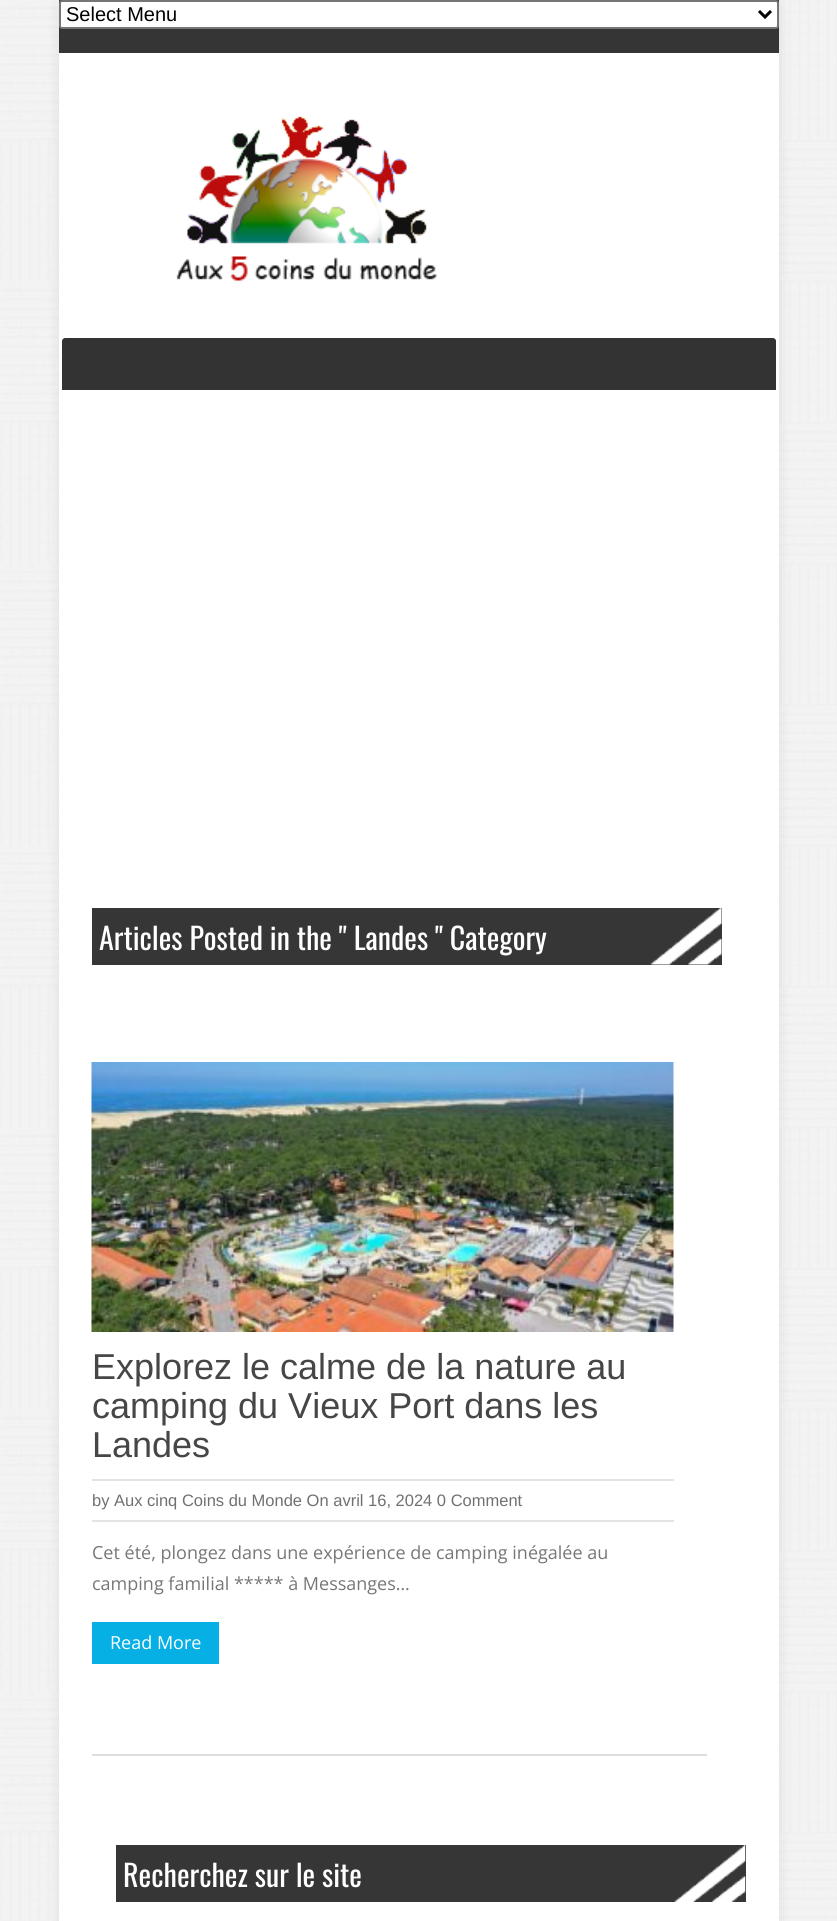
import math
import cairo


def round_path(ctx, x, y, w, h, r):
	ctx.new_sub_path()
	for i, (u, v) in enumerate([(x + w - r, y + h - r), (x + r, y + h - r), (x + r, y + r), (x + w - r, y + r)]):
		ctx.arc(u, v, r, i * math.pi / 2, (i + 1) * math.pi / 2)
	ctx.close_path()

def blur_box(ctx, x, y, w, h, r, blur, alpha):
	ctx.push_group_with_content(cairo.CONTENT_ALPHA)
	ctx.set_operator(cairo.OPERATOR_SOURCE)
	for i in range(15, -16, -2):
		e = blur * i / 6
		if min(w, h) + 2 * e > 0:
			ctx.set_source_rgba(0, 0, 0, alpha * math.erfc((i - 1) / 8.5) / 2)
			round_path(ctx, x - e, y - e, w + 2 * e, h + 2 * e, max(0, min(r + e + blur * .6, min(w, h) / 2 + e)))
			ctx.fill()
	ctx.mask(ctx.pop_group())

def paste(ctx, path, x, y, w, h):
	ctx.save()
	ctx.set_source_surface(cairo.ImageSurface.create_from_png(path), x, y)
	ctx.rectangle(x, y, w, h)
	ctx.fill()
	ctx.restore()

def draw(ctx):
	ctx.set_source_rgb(1, 1, 1)
	ctx.paint()
	paste(ctx, 'media/1.png', 0, 0, 837, 1921)
	ctx.set_source_rgb(0, 0, 0)
	blur_box(ctx, 59, 6, 720, 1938, 0, 7.5, 0.08)
	ctx.set_source_rgb(1, 1, 1)
	ctx.rectangle(59, 53, 720, 1868)
	ctx.fill()
	ctx.set_source_rgb(0.208, 0.208, 0.208)
	ctx.rectangle(59, 0, 720, 53)
	ctx.fill()
	ctx.set_source_rgb(1, 1, 1)
	round_path(ctx, 60, 1, 718, 27, 2)
	ctx.fill_preserve()
	ctx.set_source_rgb(0.463, 0.463, 0.463)
	ctx.stroke()
	ctx.new_path()
	ctx.move_to(759, 11)
	ctx.line_to(765, 17)
	ctx.line_to(771, 11)
	ctx.set_source_rgb(0, 0, 0)
	ctx.set_line_width(3)
	ctx.stroke()
	ctx.select_font_face('Liberation Sans')
	ctx.set_font_size(20)
	ctx.move_to(66, 21)
	ctx.show_text('Select Menu')
	paste(ctx, 'media/2.png', 176, 116, 261, 165)
	ctx.set_source_rgb(0.2, 0.2, 0.2)
	ctx.new_path()
	ctx.move_to(65, 338)
	ctx.line_to(773, 338)
	ctx.curve_to(774.5, 338, 776, 339.5, 776, 341)
	ctx.line_to(776, 390)
	ctx.line_to(62, 390)
	ctx.line_to(62, 341)
	ctx.curve_to(62, 339.5, 63.5, 338, 65, 338)
	ctx.close_path()
	ctx.fill()
	ctx.set_source_rgb(0.212, 0.212, 0.212)
	ctx.rectangle(92, 908, 630, 57)
	ctx.fill()
	paste(ctx, 'media/3.png', 650, 907, 72, 58)
	ctx.select_font_face('Oswald')
	ctx.set_font_size(30)
	ctx.set_source_rgb(1, 1, 1)
	ctx.move_to(99, 950)
	ctx.show_text('Articles Posted in the " Landes " Category')
	paste(ctx, 'media/4.png', 91, 1062, 583, 270)
	ctx.select_font_face('Arimo')
	ctx.set_font_size(36)
	ctx.set_source_rgb(0.275, 0.275, 0.275)
	for x, y, s in [
		(92, 1379, 'Explorez le calme de la nature au'),
		(92, 1418, 'camping du Vieux Port dans les'),
		(92, 1457, 'Landes'),
	]:
		ctx.move_to(x, y)
		ctx.show_text(s)
	ctx.set_source_rgb(0.894, 0.894, 0.894)
	ctx.rectangle(92, 1479, 582, 2)
	ctx.fill()
	ctx.rectangle(92, 1520, 582, 2)
	ctx.fill()
	ctx.set_font_size(16.5)
	ctx.set_source_rgb(0.439, 0.439, 0.439)
	ctx.move_to(92, 1506)
	ctx.show_text('by Aux cinq Coins du Monde On avril 16, 2024 0 Comment')
	ctx.select_font_face('Open Sans')
	ctx.set_font_size(18)
	ctx.set_source_rgb(0.467, 0.467, 0.467)
	ctx.move_to(92, 1559)
	ctx.show_text('Cet été, plongez dans une expérience de camping inégalée au')
	ctx.move_to(92, 1590)
	ctx.show_text('camping familial ***** à Messanges…')
	ctx.set_source_rgb(0.024, 0.686, 0.894)
	ctx.rectangle(92, 1622, 127, 42)
	ctx.fill()
	ctx.set_source_rgb(1, 1, 1)
	ctx.move_to(110, 1649)
	ctx.show_text('Read More')
	ctx.set_source_rgb(0.867, 0.867, 0.867)
	ctx.rectangle(92, 1754, 615, 2)
	ctx.fill()
	ctx.set_source_rgb(0.212, 0.212, 0.212)
	ctx.rectangle(116, 1845, 630, 57)
	ctx.fill()
	paste(ctx, 'media/5.png', 674, 1845, 72, 57)
	ctx.select_font_face('Oswald')
	ctx.set_font_size(30)
	ctx.set_source_rgb(1, 1, 1)
	ctx.move_to(123, 1887)
	ctx.show_text('Recherchez sur le site')


surface = cairo.ImageSurface(cairo.FORMAT_RGB24, 837, 1921)
ctx = cairo.Context(surface)
options = cairo.FontOptions()
options.set_hint_metrics(cairo.HINT_METRICS_OFF)
options.set_hint_style(cairo.HINT_STYLE_NONE)
ctx.set_font_options(options)
ctx.set_miter_limit(4)
draw(ctx)
surface.write_to_png('image.png')
